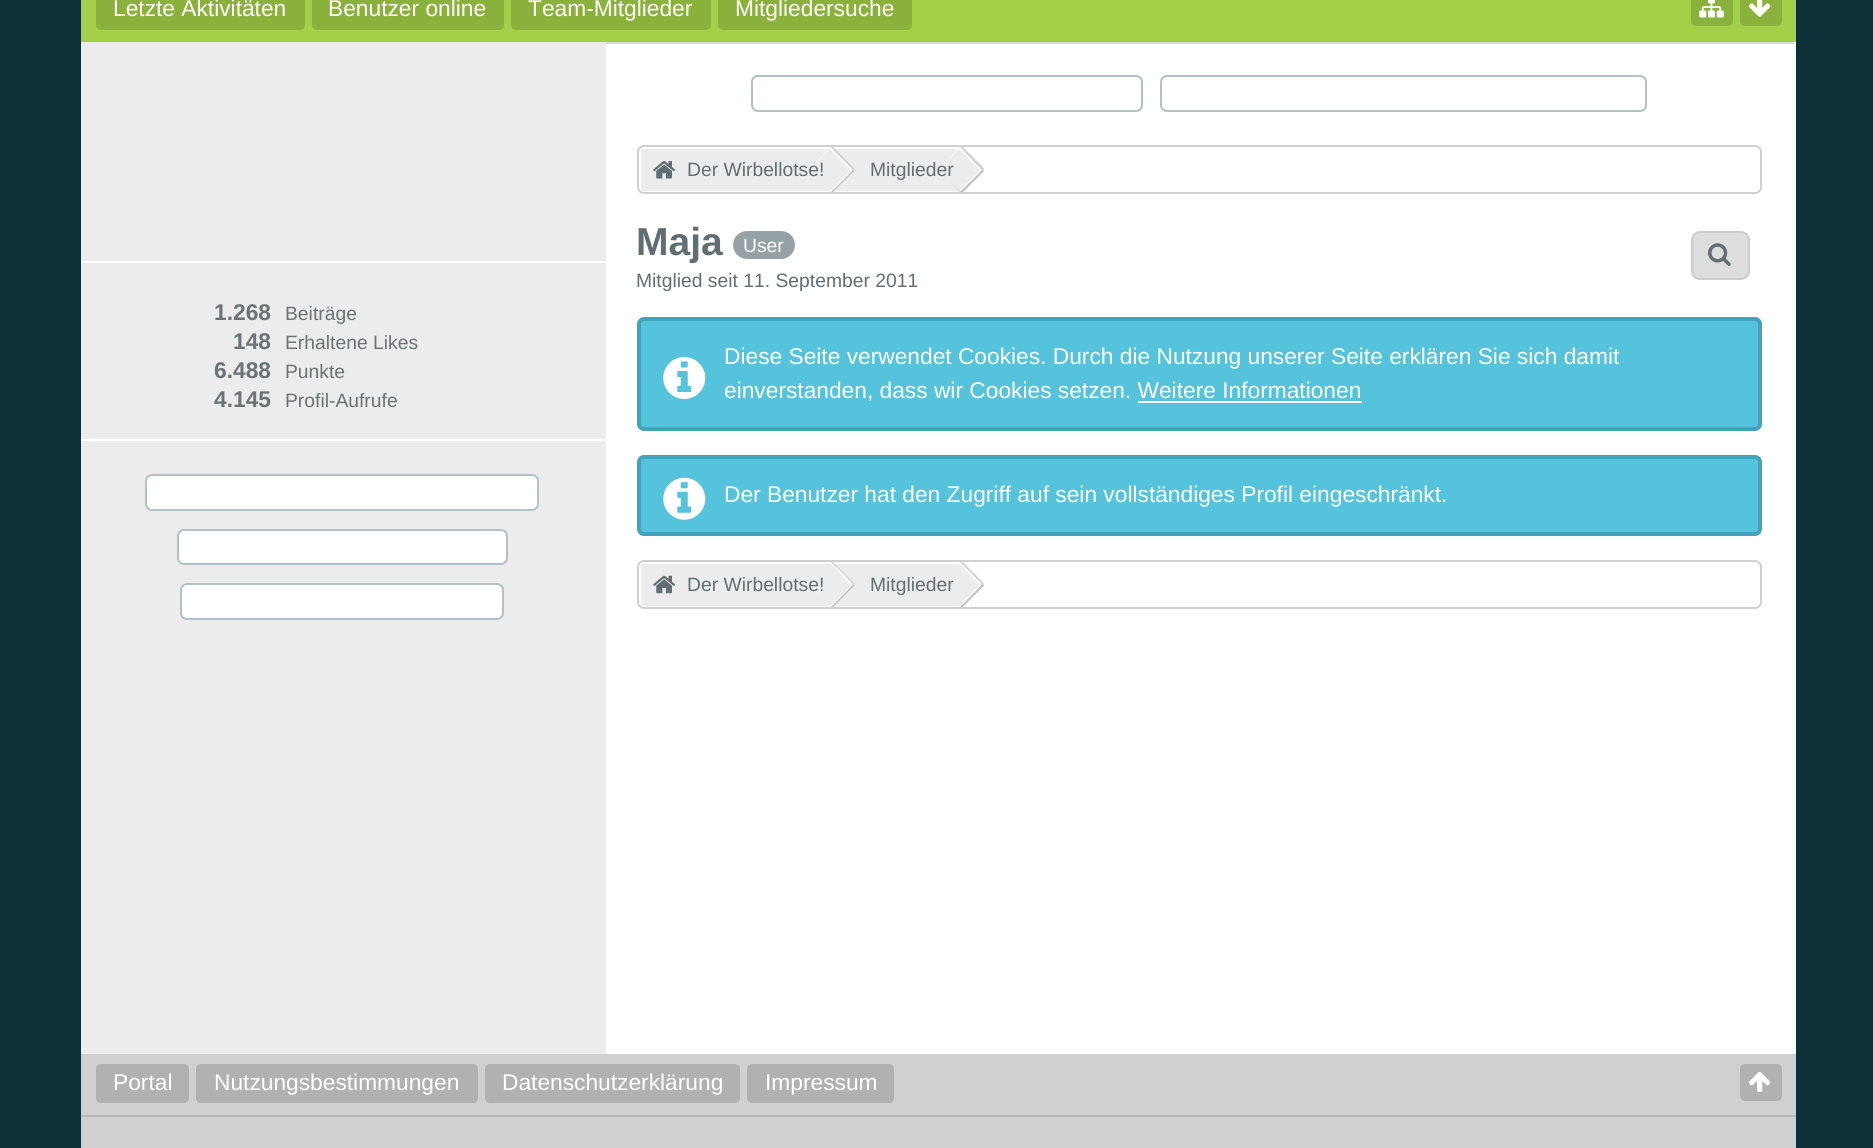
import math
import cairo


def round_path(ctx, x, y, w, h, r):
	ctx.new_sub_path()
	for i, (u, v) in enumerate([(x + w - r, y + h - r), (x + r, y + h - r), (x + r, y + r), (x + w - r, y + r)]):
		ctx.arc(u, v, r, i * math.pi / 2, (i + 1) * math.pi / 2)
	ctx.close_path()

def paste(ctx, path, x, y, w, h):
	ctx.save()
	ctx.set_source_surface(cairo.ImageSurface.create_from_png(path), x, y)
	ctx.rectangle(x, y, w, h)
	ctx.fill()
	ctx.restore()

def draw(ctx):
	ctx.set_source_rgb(0.051, 0.188, 0.224)
	ctx.paint()
	ctx.set_source_rgb(0.639, 0.816, 0.282)
	ctx.rectangle(81, 0, 1715, 42)
	ctx.fill()
	ctx.set_source_rgb(0.545, 0.694, 0.239)
	round_path(ctx, 96, -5, 209, 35, 5)
	ctx.fill()
	ctx.select_font_face('Liberation Sans')
	ctx.set_font_size(22.75)
	ctx.set_source_rgb(1, 1, 1)
	ctx.move_to(113, 16)
	ctx.show_text('Letzte Aktivitäten')
	ctx.set_source_rgb(0.545, 0.694, 0.239)
	round_path(ctx, 312, -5, 192, 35, 5)
	ctx.fill()
	ctx.set_source_rgb(1, 1, 1)
	ctx.move_to(328, 16)
	ctx.show_text('Benutzer online')
	ctx.set_source_rgb(0.545, 0.694, 0.239)
	round_path(ctx, 511, -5, 200, 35, 5)
	ctx.fill()
	ctx.set_source_rgb(1, 1, 1)
	ctx.move_to(528, 16)
	ctx.show_text('Team-Mitglieder')
	ctx.set_source_rgb(0.545, 0.694, 0.239)
	round_path(ctx, 718, -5, 194, 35, 5)
	ctx.fill()
	ctx.set_source_rgb(1, 1, 1)
	ctx.move_to(735, 16)
	ctx.show_text('Mitgliedersuche')
	ctx.set_source_rgb(0.545, 0.694, 0.239)
	round_path(ctx, 1691, -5, 42, 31, 5)
	ctx.fill()
	paste(ctx, 'media/1.png', 1699, 0, 25, 18)
	round_path(ctx, 1740, -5, 42, 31, 5)
	ctx.fill()
	paste(ctx, 'media/2.png', 1749, 0, 22, 17)
	ctx.set_source_rgb(1, 1, 1)
	ctx.rectangle(606, 42, 1190, 1012)
	ctx.fill()
	ctx.set_source_rgb(0.922, 0.922, 0.922)
	ctx.rectangle(81, 42, 525, 1012)
	ctx.fill()
	ctx.set_source_rgb(1, 1, 1)
	ctx.rectangle(81, 261, 525, 2)
	ctx.rectangle(81, 439, 525, 2)
	ctx.fill()
	ctx.select_font_face('Liberation Sans', cairo.FONT_SLANT_NORMAL, cairo.FONT_WEIGHT_BOLD)
	ctx.set_source_rgb(0.416, 0.451, 0.463)
	ctx.move_to(214, 320)
	ctx.show_text('1.268')
	ctx.select_font_face('Liberation Sans')
	ctx.set_font_size(19.3)
	ctx.move_to(285, 320)
	ctx.show_text('Beiträge')
	ctx.select_font_face('Liberation Sans', cairo.FONT_SLANT_NORMAL, cairo.FONT_WEIGHT_BOLD)
	ctx.set_font_size(22.75)
	ctx.move_to(233, 349)
	ctx.show_text('148')
	ctx.select_font_face('Liberation Sans')
	ctx.set_font_size(19.3)
	ctx.move_to(285, 349)
	ctx.show_text('Erhaltene Likes')
	ctx.select_font_face('Liberation Sans', cairo.FONT_SLANT_NORMAL, cairo.FONT_WEIGHT_BOLD)
	ctx.set_font_size(22.75)
	ctx.move_to(214, 378)
	ctx.show_text('6.488')
	ctx.select_font_face('Liberation Sans')
	ctx.set_font_size(19.3)
	ctx.move_to(285, 378)
	ctx.show_text('Punkte')
	ctx.select_font_face('Liberation Sans', cairo.FONT_SLANT_NORMAL, cairo.FONT_WEIGHT_BOLD)
	ctx.set_font_size(22.75)
	ctx.move_to(214, 407)
	ctx.show_text('4.145')
	ctx.select_font_face('Liberation Sans')
	ctx.set_font_size(19.3)
	ctx.move_to(285, 407)
	ctx.show_text('Profil-Aufrufe')
	ctx.set_source_rgb(1, 1, 1)
	round_path(ctx, 146, 475, 392, 35, 6)
	ctx.fill_preserve()
	ctx.set_source_rgb(0.694, 0.757, 0.776)
	ctx.stroke()
	ctx.set_source_rgb(1, 1, 1)
	round_path(ctx, 178, 530, 329, 34, 6)
	ctx.fill_preserve()
	ctx.set_source_rgb(0.694, 0.757, 0.776)
	ctx.stroke()
	ctx.set_source_rgb(1, 1, 1)
	round_path(ctx, 181, 584, 322, 35, 6)
	ctx.fill_preserve()
	ctx.set_source_rgb(0.694, 0.757, 0.776)
	ctx.stroke()
	ctx.set_source_rgb(0.851, 0.851, 0.851)
	ctx.rectangle(606, 42, 1188, 2)
	ctx.fill()
	round_path(ctx, 752, 76, 390, 35, 6)
	ctx.set_source_rgb(0.694, 0.757, 0.776)
	ctx.stroke()
	round_path(ctx, 1161, 76, 485, 35, 6)
	ctx.stroke()
	round_path(ctx, 638, 146, 1123, 47, 6)
	ctx.set_source_rgb(0.816, 0.816, 0.816)
	ctx.stroke()
	ctx.set_source_rgb(0.922, 0.922, 0.922)
	ctx.rectangle(641, 149, 319, 42)
	ctx.fill()
	paste(ctx, 'media/3.png', 653, 161, 23, 18)
	ctx.new_path()
	ctx.move_to(833, 147)
	ctx.line_to(853, 167)
	ctx.curve_to(855, 169, 855, 171, 853, 172)
	ctx.line_to(832, 193)
	ctx.line_to(809, 170)
	ctx.line_to(831, 147)
	ctx.close_path()
	ctx.fill()
	ctx.set_source_rgba(1, 1, 1, 0.7)
	ctx.new_path()
	ctx.move_to(830, 191)
	ctx.line_to(851.5, 169.5)
	ctx.line_to(851.5, 168)
	ctx.line_to(852, 168.5)
	ctx.curve_to(852.5, 169, 852.5, 170.5, 852, 171)
	ctx.line_to(831, 192)
	ctx.close_path()
	ctx.fill()
	ctx.set_source_rgb(1, 1, 1)
	ctx.set_fill_rule(cairo.FILL_RULE_EVEN_ODD)
	ctx.new_path()
	ctx.move_to(830, 149)
	ctx.line_to(851, 170)
	ctx.curve_to(852, 170, 852, 171, 852, 171)
	ctx.curve_to(853, 170, 853, 169, 852, 169)
	ctx.line_to(831, 147)
	ctx.line_to(809, 170)
	ctx.close_path()
	ctx.move_to(831, 192)
	ctx.line_to(851, 172)
	ctx.close_path()
	ctx.fill()
	ctx.set_source_rgb(0.38, 0.431, 0.451)
	ctx.move_to(687, 176)
	ctx.show_text('Der Wirbellotse!')
	ctx.set_source_rgb(0.816, 0.816, 0.816)
	ctx.set_fill_rule(cairo.FILL_RULE_WINDING)
	ctx.new_path()
	ctx.move_to(833, 147)
	ctx.line_to(853, 167)
	ctx.curve_to(854, 168, 854.5, 169, 854.5, 170)
	ctx.line_to(852.5, 170)
	ctx.curve_to(853, 169.5, 852.5, 169, 852, 169)
	ctx.line_to(831, 147.5)
	ctx.line_to(831.5, 147)
	ctx.close_path()
	ctx.fill()
	ctx.set_source_rgb(0.745, 0.745, 0.745)
	ctx.new_path()
	ctx.move_to(831, 192)
	ctx.line_to(832, 193)
	ctx.line_to(854, 171)
	ctx.line_to(854.5, 170)
	ctx.line_to(852.5, 170)
	ctx.curve_to(852.5, 171.5, 833.5, 189.5, 831, 192)
	ctx.close_path()
	ctx.fill()
	ctx.set_source_rgb(0.922, 0.922, 0.922)
	ctx.new_path()
	ctx.move_to(963, 147)
	ctx.line_to(983, 167)
	ctx.curve_to(984, 169, 984, 171, 983, 172)
	ctx.line_to(962, 193)
	ctx.line_to(938, 170)
	ctx.line_to(961, 147)
	ctx.close_path()
	ctx.fill()
	ctx.set_source_rgba(1, 1, 1, 0.7)
	ctx.new_path()
	ctx.move_to(959, 191)
	ctx.line_to(980, 170)
	ctx.curve_to(981, 169, 981, 168.5, 980.5, 167.5)
	ctx.line_to(981.5, 168.5)
	ctx.curve_to(982, 169, 982, 170.5, 981.5, 171)
	ctx.line_to(960.5, 192)
	ctx.close_path()
	ctx.fill()
	ctx.set_source_rgb(1, 1, 1)
	ctx.new_path()
	ctx.move_to(959, 149)
	ctx.line_to(980, 170)
	ctx.curve_to(981, 170, 981, 172, 980, 172)
	ctx.line_to(960, 192)
	ctx.line_to(981, 171)
	ctx.curve_to(982, 170, 982, 169, 981, 169)
	ctx.line_to(960, 147)
	ctx.line_to(938, 170)
	ctx.close_path()
	ctx.fill()
	ctx.set_source_rgb(0.745, 0.745, 0.745)
	ctx.set_fill_rule(cairo.FILL_RULE_EVEN_ODD)
	ctx.new_path()
	ctx.move_to(983.5, 171.5)
	ctx.line_to(962, 193)
	ctx.line_to(960.5, 191.5)
	ctx.curve_to(963, 189, 981.5, 171.5, 981.5, 170)
	ctx.line_to(983.5, 170)
	ctx.close_path()
	ctx.move_to(950, 181.5)
	ctx.line_to(960.5, 191.5)
	ctx.line_to(960, 192)
	ctx.close_path()
	ctx.fill()
	ctx.set_source_rgb(0.38, 0.431, 0.451)
	ctx.move_to(870, 176)
	ctx.show_text('Mitglieder')
	ctx.set_source_rgb(0.816, 0.816, 0.816)
	ctx.new_path()
	ctx.move_to(950, 158)
	ctx.line_to(960.5, 147.5)
	ctx.close_path()
	ctx.move_to(981.5, 170)
	ctx.curve_to(982, 169.5, 981.5, 169, 981, 169)
	ctx.line_to(960.5, 147.5)
	ctx.line_to(961, 147)
	ctx.line_to(962.5, 147)
	ctx.line_to(983.5, 168)
	ctx.line_to(983.5, 170)
	ctx.close_path()
	ctx.fill()
	ctx.select_font_face('Liberation Sans', cairo.FONT_SLANT_NORMAL, cairo.FONT_WEIGHT_BOLD)
	ctx.set_font_size(39)
	ctx.set_source_rgb(0.38, 0.431, 0.451)
	ctx.move_to(636, 255)
	ctx.show_text('Maja')
	ctx.set_source_rgb(0.584, 0.631, 0.647)
	round_path(ctx, 733, 231, 62, 28, 14)
	ctx.fill()
	ctx.select_font_face('Liberation Sans')
	ctx.set_font_size(19.3)
	ctx.set_source_rgb(1, 1, 1)
	ctx.move_to(743, 252)
	ctx.show_text('User')
	ctx.set_source_rgb(0.867, 0.867, 0.867)
	round_path(ctx, 1692, 232, 57, 47, 8)
	ctx.fill_preserve()
	ctx.set_source_rgb(0.8, 0.8, 0.8)
	ctx.stroke()
	paste(ctx, 'media/4.png', 1708, 243, 23, 23)
	ctx.set_source_rgb(0.38, 0.431, 0.451)
	ctx.move_to(636, 287)
	ctx.show_text('Mitglied seit 11. September 2011')
	ctx.set_source_rgb(0.337, 0.765, 0.863)
	round_path(ctx, 639, 319, 1121, 110, 5)
	ctx.fill_preserve()
	ctx.set_source_rgb(0.255, 0.643, 0.733)
	ctx.set_line_width(4)
	ctx.stroke()
	paste(ctx, 'media/5.png', 663, 357, 43, 42)
	ctx.set_font_size(22.75)
	ctx.set_source_rgb(1, 1, 1)
	ctx.move_to(724, 364)
	ctx.show_text('Diese Seite verwendet Cookies. Durch die Nutzung unserer Seite erklären Sie sich damit')
	ctx.move_to(724, 398)
	ctx.show_text('einverstanden, dass wir Cookies setzen. Weitere Informationen')
	ctx.rectangle(1138, 401, 224, 2)
	ctx.fill()
	ctx.set_source_rgb(0.337, 0.765, 0.863)
	round_path(ctx, 639, 457, 1121, 77, 5)
	ctx.fill_preserve()
	ctx.set_source_rgb(0.255, 0.643, 0.733)
	ctx.stroke()
	paste(ctx, 'media/6.png', 663, 477, 43, 43)
	ctx.set_source_rgb(1, 1, 1)
	ctx.move_to(724, 502)
	ctx.show_text('Der Benutzer hat den Zugriff auf sein vollständiges Profil eingeschränkt.')
	round_path(ctx, 638, 561, 1123, 47, 6)
	ctx.set_source_rgb(0.816, 0.816, 0.816)
	ctx.set_line_width(2)
	ctx.stroke()
	ctx.set_source_rgb(0.922, 0.922, 0.922)
	ctx.rectangle(641, 564, 319, 42)
	ctx.fill()
	paste(ctx, 'media/7.png', 653, 575, 23, 19)
	ctx.set_fill_rule(cairo.FILL_RULE_WINDING)
	ctx.new_path()
	ctx.move_to(831, 607)
	ctx.line_to(809, 585)
	ctx.line_to(831, 562)
	ctx.line_to(833, 562)
	ctx.line_to(853, 582)
	ctx.curve_to(855, 583, 855, 586, 853, 587)
	ctx.line_to(833, 607)
	ctx.close_path()
	ctx.fill()
	ctx.set_source_rgba(1, 1, 1, 0.7)
	ctx.set_fill_rule(cairo.FILL_RULE_EVEN_ODD)
	ctx.new_path()
	ctx.move_to(809, 584)
	ctx.line_to(809, 585)
	ctx.line_to(825, 601)
	ctx.close_path()
	ctx.move_to(830, 606)
	ctx.curve_to(833, 603, 853, 585, 852, 583)
	ctx.curve_to(853, 584, 853, 585, 852, 586)
	ctx.line_to(831, 607)
	ctx.close_path()
	ctx.fill()
	ctx.set_font_size(19.3)
	ctx.set_source_rgb(0.38, 0.431, 0.451)
	ctx.move_to(687, 591)
	ctx.show_text('Der Wirbellotse!')
	ctx.set_source_rgb(1, 1, 1)
	ctx.new_path()
	ctx.move_to(824, 569)
	ctx.line_to(809, 585)
	ctx.close_path()
	ctx.move_to(831, 562)
	ctx.line_to(852, 583)
	ctx.curve_to(853, 584, 853, 585, 852, 586)
	ctx.curve_to(852, 586, 852, 585, 851, 585)
	ctx.line_to(830, 563)
	ctx.close_path()
	ctx.fill()
	ctx.set_source_rgb(0.816, 0.816, 0.816)
	ctx.new_path()
	ctx.move_to(820.5, 573)
	ctx.line_to(825.5, 567.5)
	ctx.close_path()
	ctx.move_to(854.5, 584.5)
	ctx.line_to(852.5, 584.5)
	ctx.curve_to(853, 583, 834, 565, 831, 562)
	ctx.line_to(833, 562)
	ctx.line_to(853, 582)
	ctx.curve_to(854, 582.5, 854.5, 583.5, 854.5, 584.5)
	ctx.close_path()
	ctx.fill()
	ctx.set_source_rgb(0.745, 0.745, 0.745)
	ctx.set_fill_rule(cairo.FILL_RULE_WINDING)
	ctx.new_path()
	ctx.move_to(833, 607)
	ctx.line_to(831, 607)
	ctx.curve_to(833.5, 604.5, 852.5, 586, 852.5, 584.5)
	ctx.line_to(854.5, 584.5)
	ctx.curve_to(854.5, 585.5, 854, 586.5, 853, 587)
	ctx.close_path()
	ctx.fill()
	ctx.set_source_rgb(0.922, 0.922, 0.922)
	ctx.new_path()
	ctx.move_to(961, 607)
	ctx.line_to(938, 585)
	ctx.line_to(961, 562)
	ctx.line_to(963, 562)
	ctx.line_to(983, 582)
	ctx.curve_to(984, 583, 984, 586, 983, 587)
	ctx.line_to(963, 607)
	ctx.close_path()
	ctx.fill()
	ctx.set_source_rgb(0.38, 0.431, 0.451)
	ctx.move_to(870, 591)
	ctx.show_text('Mitglieder')
	ctx.set_source_rgba(1, 1, 1, 0.7)
	ctx.set_fill_rule(cairo.FILL_RULE_EVEN_ODD)
	ctx.new_path()
	ctx.move_to(938, 584)
	ctx.line_to(947, 594)
	ctx.close_path()
	ctx.move_to(960, 562)
	ctx.line_to(981, 583)
	ctx.curve_to(982, 584, 982, 585, 981, 586)
	ctx.line_to(960, 607)
	ctx.line_to(959, 606)
	ctx.line_to(980, 585)
	ctx.curve_to(981, 584, 981, 583, 980, 582)
	ctx.close_path()
	ctx.fill()
	ctx.set_source_rgb(1, 1, 1)
	ctx.new_path()
	ctx.move_to(946, 576)
	ctx.line_to(938, 585)
	ctx.close_path()
	ctx.move_to(960, 562)
	ctx.line_to(981, 583)
	ctx.curve_to(982, 584, 982, 585, 981, 586)
	ctx.line_to(960, 607)
	ctx.line_to(980, 587)
	ctx.curve_to(981, 586, 981, 585, 980, 585)
	ctx.line_to(959, 563)
	ctx.close_path()
	ctx.fill()
	ctx.set_source_rgb(0.816, 0.816, 0.816)
	ctx.new_path()
	ctx.move_to(950, 573)
	ctx.line_to(960.5, 562.5)
	ctx.close_path()
	ctx.move_to(981.5, 584.5)
	ctx.curve_to(982, 583, 963, 565, 960.5, 562.5)
	ctx.line_to(961, 562)
	ctx.line_to(962.5, 562)
	ctx.line_to(983.5, 583)
	ctx.line_to(983.5, 584.5)
	ctx.close_path()
	ctx.fill()
	ctx.set_source_rgb(0.745, 0.745, 0.745)
	ctx.new_path()
	ctx.move_to(983.5, 586)
	ctx.line_to(962.5, 607)
	ctx.line_to(961, 607)
	ctx.line_to(960.5, 606.5)
	ctx.curve_to(963, 604, 981.5, 586, 981.5, 584.5)
	ctx.line_to(983.5, 584.5)
	ctx.close_path()
	ctx.move_to(951, 597)
	ctx.line_to(960.5, 606.5)
	ctx.close_path()
	ctx.fill()
	ctx.set_source_rgb(0.816, 0.816, 0.816)
	ctx.rectangle(81, 1054, 1715, 94)
	ctx.fill()
	ctx.set_source_rgb(0.718, 0.718, 0.718)
	ctx.rectangle(81, 1115, 1715, 2)
	ctx.fill()
	ctx.set_source_rgb(0.694, 0.694, 0.694)
	round_path(ctx, 96, 1064, 93, 39, 5)
	ctx.fill()
	ctx.set_font_size(22.75)
	ctx.set_source_rgb(1, 1, 1)
	ctx.move_to(113, 1090)
	ctx.show_text('Portal')
	ctx.set_source_rgb(0.694, 0.694, 0.694)
	round_path(ctx, 196, 1064, 282, 39, 5)
	ctx.fill()
	ctx.set_source_rgb(1, 1, 1)
	ctx.move_to(214, 1090)
	ctx.show_text('Nutzungsbestimmungen')
	ctx.set_source_rgb(0.694, 0.694, 0.694)
	round_path(ctx, 485, 1064, 255, 39, 5)
	ctx.fill()
	ctx.set_source_rgb(1, 1, 1)
	ctx.move_to(502, 1090)
	ctx.show_text('Datenschutzerklärung')
	ctx.set_source_rgb(0.694, 0.694, 0.694)
	round_path(ctx, 747, 1064, 147, 39, 5)
	ctx.fill()
	ctx.set_source_rgb(1, 1, 1)
	ctx.move_to(765, 1090)
	ctx.show_text('Impressum')
	ctx.set_source_rgb(0.694, 0.694, 0.694)
	round_path(ctx, 1740, 1064, 42, 37, 5)
	ctx.fill()
	paste(ctx, 'media/8.png', 1749, 1071, 22, 21)


surface = cairo.ImageSurface(cairo.FORMAT_RGB24, 1873, 1148)
ctx = cairo.Context(surface)
options = cairo.FontOptions()
options.set_hint_metrics(cairo.HINT_METRICS_OFF)
options.set_hint_style(cairo.HINT_STYLE_NONE)
ctx.set_font_options(options)
ctx.set_miter_limit(4)
draw(ctx)
surface.write_to_png('image.png')
